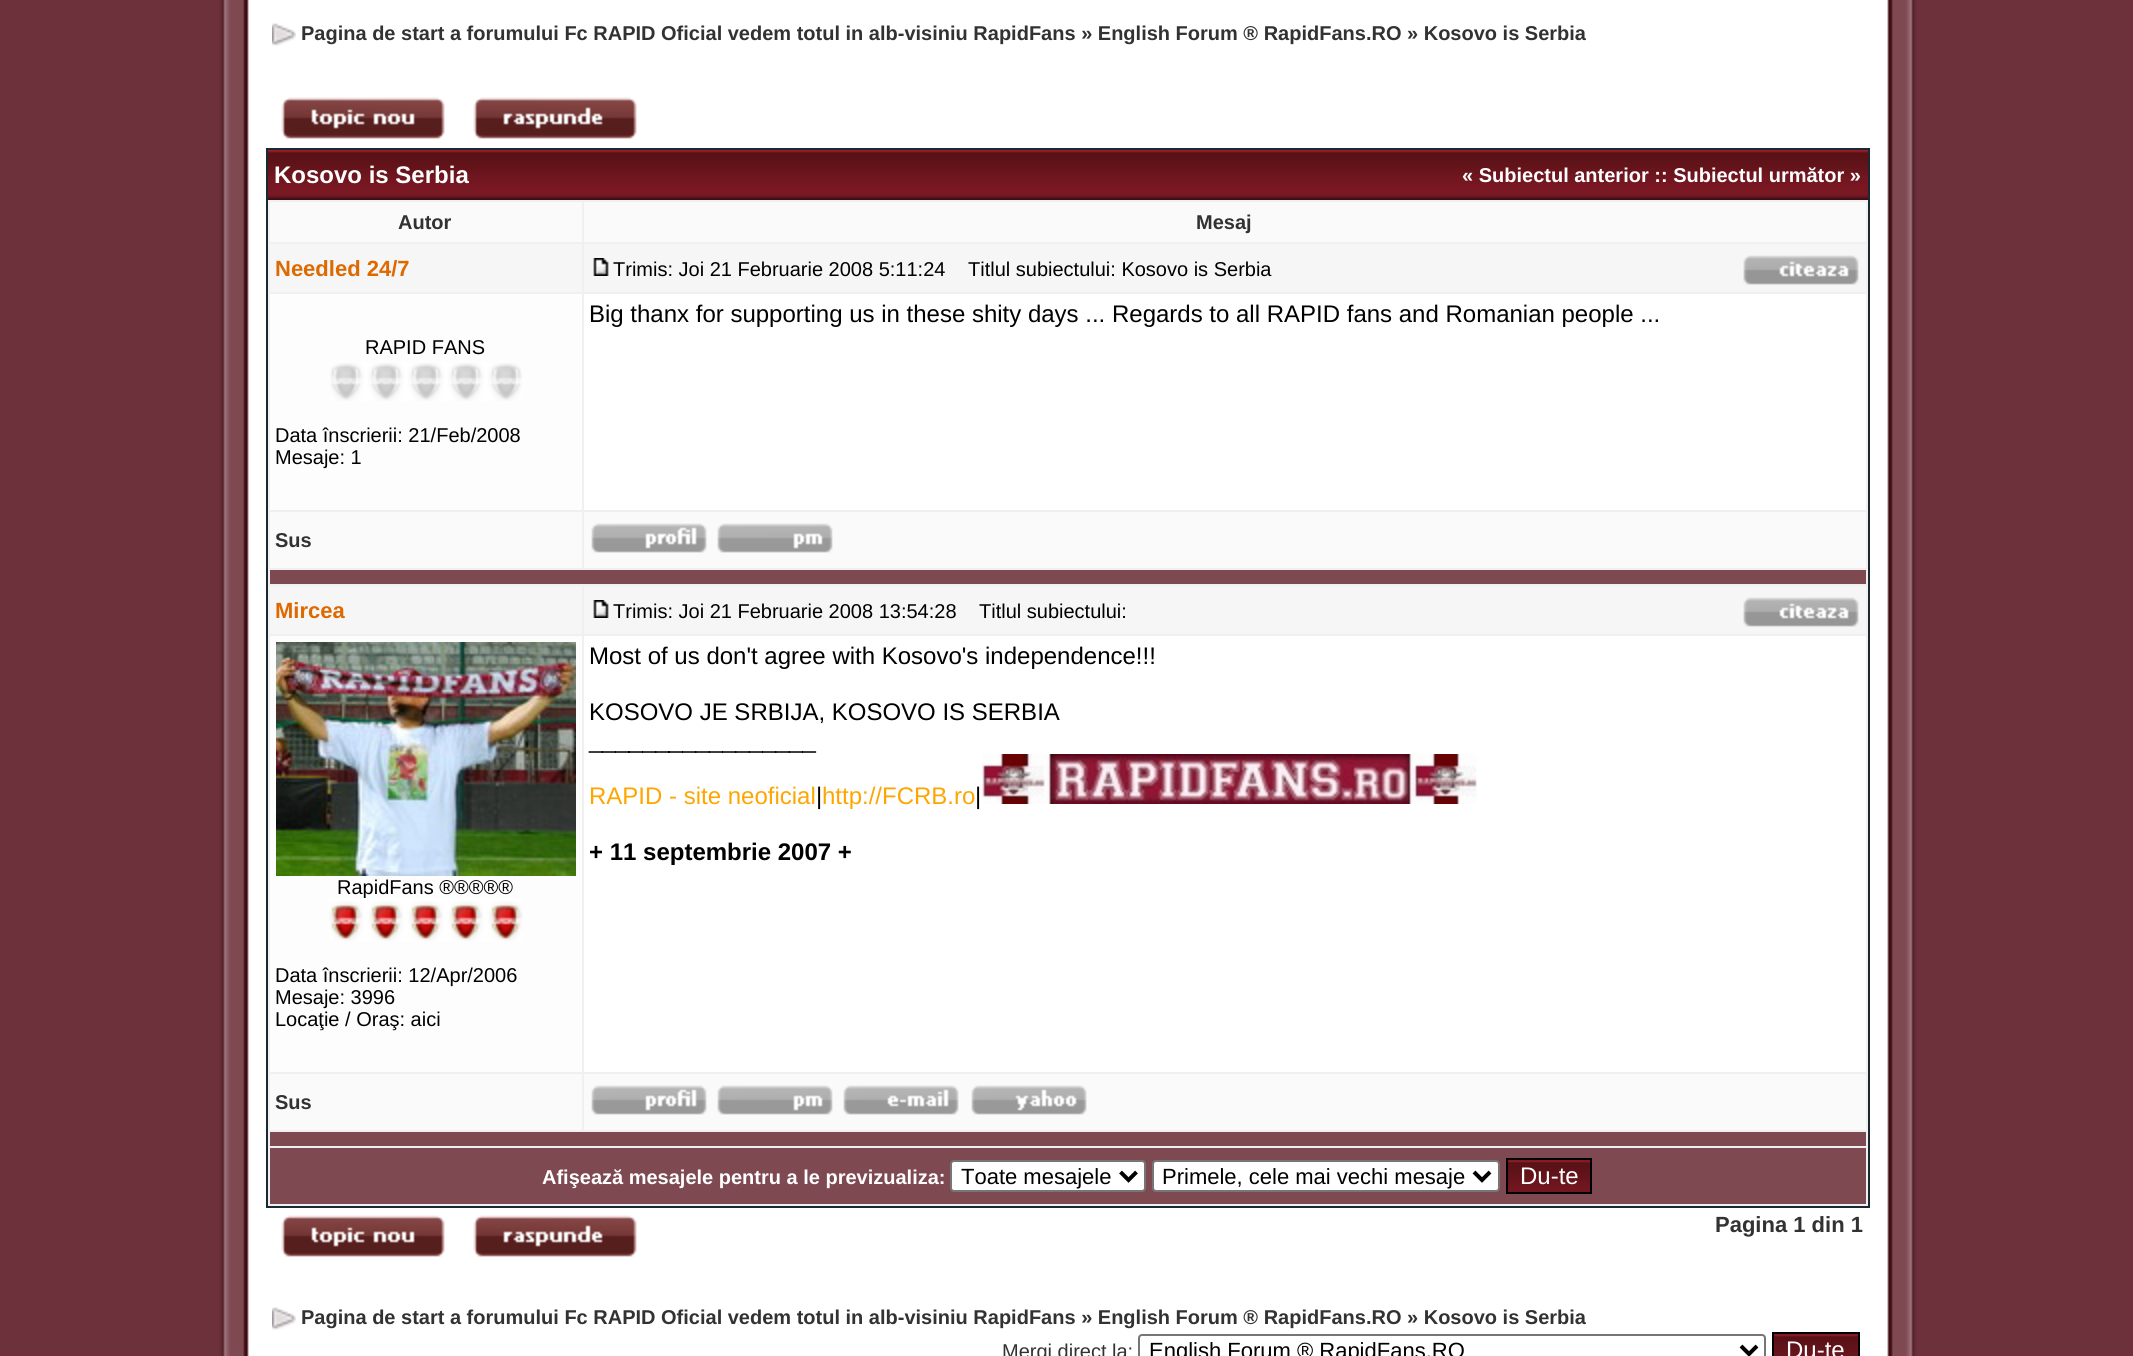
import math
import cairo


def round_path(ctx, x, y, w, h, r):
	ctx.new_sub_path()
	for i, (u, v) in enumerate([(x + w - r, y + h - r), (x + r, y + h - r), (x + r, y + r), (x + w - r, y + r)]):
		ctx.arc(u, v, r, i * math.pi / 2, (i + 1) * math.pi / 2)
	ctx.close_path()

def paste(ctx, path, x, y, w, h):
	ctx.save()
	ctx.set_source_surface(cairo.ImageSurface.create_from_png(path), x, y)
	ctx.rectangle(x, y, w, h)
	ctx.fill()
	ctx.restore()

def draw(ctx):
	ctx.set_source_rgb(0.427, 0.192, 0.231)
	ctx.paint()
	paste(ctx, 'media/1.png', 219, 0, 47, 1356)
	ctx.set_source_rgb(1, 1, 1)
	ctx.rectangle(266, 0, 1604, 1356)
	ctx.fill()
	paste(ctx, 'media/2.png', 272, 23, 24, 23)
	ctx.select_font_face('Liberation Sans', cairo.FONT_SLANT_NORMAL, cairo.FONT_WEIGHT_BOLD)
	ctx.set_font_size(20)
	ctx.set_source_rgb(0.196, 0.196, 0.196)
	ctx.move_to(301, 40)
	ctx.show_text('Pagina de start a forumului Fc RAPID Oficial vedem totul in alb-visiniu RapidFans » English Forum ® RapidFans.RO » Kosovo is Serbia')
	paste(ctx, 'media/3.png', 281, 97, 164, 42)
	paste(ctx, 'media/4.png', 473, 97, 164, 42)
	ctx.set_source_rgb(0.941, 0.941, 0.941)
	ctx.rectangle(268, 200, 1600, 1006)
	ctx.fill()
	ctx.rectangle(267, 149, 1602, 1058)
	ctx.set_source_rgb(0.098, 0.157, 0.196)
	ctx.stroke()
	paste(ctx, 'media/5.png', 268, 150, 530, 50)
	ctx.set_font_size(24)
	ctx.set_source_rgb(1, 1, 1)
	ctx.move_to(274, 183)
	ctx.show_text('Kosovo is Serbia')
	paste(ctx, 'media/6.png', 798, 150, 1070, 50)
	ctx.set_font_size(20)
	ctx.move_to(1462, 182)
	ctx.show_text('« Subiectul anterior :: Subiectul următor »')
	ctx.set_source_rgb(0.98, 0.98, 0.98)
	ctx.rectangle(270, 202, 312, 40)
	ctx.fill()
	ctx.set_source_rgb(0.196, 0.196, 0.196)
	ctx.move_to(398, 229)
	ctx.show_text('Autor')
	ctx.set_source_rgb(0.98, 0.98, 0.98)
	ctx.rectangle(584, 202, 1282, 40)
	ctx.fill()
	ctx.set_source_rgb(0.196, 0.196, 0.196)
	ctx.move_to(1196, 229)
	ctx.show_text('Mesaj')
	ctx.set_source_rgb(0.961, 0.961, 0.961)
	ctx.rectangle(270, 244, 312, 48)
	ctx.fill()
	ctx.set_font_size(22)
	ctx.set_source_rgb(0.867, 0.412, 0)
	ctx.move_to(275, 276)
	ctx.show_text('Needled 24/7')
	ctx.set_source_rgb(0.961, 0.961, 0.961)
	ctx.rectangle(584, 244, 1282, 48)
	ctx.fill()
	paste(ctx, 'media/7.png', 593, 258, 16, 18)
	ctx.select_font_face('Liberation Sans')
	ctx.set_font_size(20)
	ctx.set_source_rgb(0, 0, 0)
	ctx.move_to(613, 276)
	ctx.show_text('Trimis: Joi 21 Februarie 2008 5:11:24')
	ctx.move_to(968, 276)
	ctx.show_text('Titlul subiectului: Kosovo is Serbia')
	paste(ctx, 'media/8.png', 1743, 255, 116, 30)
	ctx.set_source_rgb(1, 1, 1)
	ctx.rectangle(584, 294, 1282, 216)
	ctx.fill()
	ctx.set_font_size(24)
	ctx.set_source_rgb(0, 0, 0)
	ctx.move_to(589, 322)
	ctx.show_text('Big thanx for supporting us in these shity days ... Regards to all RAPID fans and Romanian people ...')
	ctx.set_source_rgb(0.992, 0.992, 0.992)
	ctx.rectangle(270, 294, 312, 216)
	ctx.fill()
	ctx.set_font_size(20)
	ctx.set_source_rgb(0, 0, 0)
	ctx.move_to(365, 354)
	ctx.show_text('RAPID FANS')
	paste(ctx, 'media/9.png', 330, 363, 192, 38)
	ctx.move_to(275, 442)
	ctx.show_text('Data înscrierii: 21/Feb/2008')
	ctx.move_to(275, 464)
	ctx.show_text('Mesaje: 1')
	ctx.set_source_rgb(0.98, 0.98, 0.98)
	ctx.rectangle(270, 512, 312, 56)
	ctx.fill()
	ctx.select_font_face('Liberation Sans', cairo.FONT_SLANT_NORMAL, cairo.FONT_WEIGHT_BOLD)
	ctx.set_source_rgb(0.196, 0.196, 0.196)
	ctx.move_to(275, 547)
	ctx.show_text('Sus')
	ctx.set_source_rgb(0.98, 0.98, 0.98)
	ctx.rectangle(584, 512, 1282, 56)
	ctx.fill()
	paste(ctx, 'media/10.png', 591, 523, 116, 30)
	paste(ctx, 'media/11.png', 717, 523, 116, 30)
	ctx.set_source_rgb(0.498, 0.286, 0.322)
	ctx.rectangle(270, 570, 1596, 14)
	ctx.fill()
	ctx.set_source_rgb(0.961, 0.961, 0.961)
	ctx.rectangle(270, 586, 312, 48)
	ctx.fill()
	ctx.set_font_size(22)
	ctx.set_source_rgb(0.867, 0.412, 0)
	ctx.move_to(275, 618)
	ctx.show_text('Mircea')
	ctx.set_source_rgb(0.961, 0.961, 0.961)
	ctx.rectangle(584, 586, 1282, 48)
	ctx.fill()
	paste(ctx, 'media/7.png', 593, 600, 16, 18)
	ctx.select_font_face('Liberation Sans')
	ctx.set_font_size(20)
	ctx.set_source_rgb(0, 0, 0)
	ctx.move_to(613, 618)
	ctx.show_text('Trimis: Joi 21 Februarie 2008 13:54:28')
	ctx.move_to(979, 618)
	ctx.show_text('Titlul subiectului:')
	paste(ctx, 'media/8.png', 1743, 597, 116, 30)
	ctx.set_source_rgb(1, 1, 1)
	ctx.rectangle(584, 636, 1282, 436)
	ctx.fill()
	ctx.set_font_size(24)
	ctx.set_source_rgb(0, 0, 0)
	for x, y, s in [
		(589, 664, 'Most of us don\'t agree with Kosovo\'s independence!!!'),
		(589, 720, 'KOSOVO JE SRBIJA, KOSOVO IS SERBIA'),
		(589, 748, '_________________'),
	]:
		ctx.move_to(x, y)
		ctx.show_text(s)
	ctx.set_source_rgb(1, 0.647, 0)
	ctx.move_to(589, 804)
	ctx.show_text('RAPID - site neoficial')
	ctx.set_source_rgb(0, 0, 0)
	ctx.move_to(816, 804)
	ctx.show_text('|')
	ctx.set_source_rgb(1, 0.647, 0)
	ctx.move_to(822, 804)
	ctx.show_text('http://FCRB.ro')
	ctx.set_source_rgb(0, 0, 0)
	ctx.move_to(975, 804)
	ctx.show_text('|')
	paste(ctx, 'media/12.png', 982, 754, 495, 50)
	ctx.select_font_face('Liberation Sans', cairo.FONT_SLANT_NORMAL, cairo.FONT_WEIGHT_BOLD)
	ctx.move_to(589, 860)
	ctx.show_text('+ 11 septembrie 2007 +')
	ctx.set_source_rgb(0.992, 0.992, 0.992)
	ctx.rectangle(270, 636, 312, 436)
	ctx.fill()
	paste(ctx, 'media/13.png', 276, 642, 300, 234)
	ctx.select_font_face('Liberation Sans')
	ctx.set_font_size(20)
	ctx.set_source_rgb(0, 0, 0)
	ctx.move_to(337, 894)
	ctx.show_text('RapidFans ®®®®®')
	paste(ctx, 'media/14.png', 329, 898, 194, 43)
	for x, y, s in [
		(275, 982, 'Data înscrierii: 12/Apr/2006'),
		(275, 1004, 'Mesaje: 3996'),
		(275, 1026, 'Locaţie / Oraş: aici'),
	]:
		ctx.move_to(x, y)
		ctx.show_text(s)
	ctx.set_source_rgb(0.98, 0.98, 0.98)
	ctx.rectangle(270, 1074, 312, 56)
	ctx.fill()
	ctx.select_font_face('Liberation Sans', cairo.FONT_SLANT_NORMAL, cairo.FONT_WEIGHT_BOLD)
	ctx.set_source_rgb(0.196, 0.196, 0.196)
	ctx.move_to(275, 1109)
	ctx.show_text('Sus')
	ctx.set_source_rgb(0.98, 0.98, 0.98)
	ctx.rectangle(584, 1074, 1282, 56)
	ctx.fill()
	paste(ctx, 'media/10.png', 591, 1085, 116, 30)
	paste(ctx, 'media/11.png', 717, 1085, 116, 30)
	paste(ctx, 'media/15.png', 843, 1085, 116, 30)
	paste(ctx, 'media/16.png', 971, 1085, 116, 30)
	ctx.set_source_rgb(0.498, 0.286, 0.322)
	ctx.rectangle(270, 1132, 1596, 14)
	ctx.fill()
	ctx.rectangle(270, 1148, 1596, 56)
	ctx.fill()
	ctx.set_source_rgb(1, 1, 1)
	ctx.move_to(542, 1184)
	ctx.show_text('Afişează mesajele pentru a le previzualiza:')
	round_path(ctx, 951, 1161, 194, 30, 3)
	ctx.fill_preserve()
	ctx.set_source_rgb(0.463, 0.463, 0.463)
	ctx.stroke()
	ctx.new_path()
	ctx.move_to(1120.5, 1172)
	ctx.line_to(1128.5, 1180)
	ctx.line_to(1136.5, 1172)
	ctx.set_source_rgb(0, 0, 0)
	ctx.set_line_width(4)
	ctx.stroke()
	ctx.select_font_face('Liberation Sans')
	ctx.set_font_size(22)
	ctx.move_to(961, 1184)
	ctx.show_text('Toate mesajele')
	ctx.set_source_rgb(1, 1, 1)
	round_path(ctx, 1153, 1161, 346, 30, 3)
	ctx.fill_preserve()
	ctx.set_source_rgb(0.463, 0.463, 0.463)
	ctx.set_line_width(2)
	ctx.stroke()
	ctx.new_path()
	ctx.move_to(1474, 1172)
	ctx.line_to(1482, 1180)
	ctx.line_to(1490, 1172)
	ctx.set_source_rgb(0, 0, 0)
	ctx.set_line_width(4)
	ctx.stroke()
	ctx.move_to(1162, 1184)
	ctx.show_text('Primele, cele mai vechi mesaje')
	paste(ctx, 'media/17.png', 1508, 1160, 82, 32)
	ctx.rectangle(1507, 1159, 84, 34)
	ctx.set_line_width(2)
	ctx.stroke()
	ctx.set_font_size(24)
	ctx.set_source_rgb(1, 1, 1)
	ctx.move_to(1520, 1184)
	ctx.show_text('Du-te')
	paste(ctx, 'media/3.png', 281, 1215, 164, 42)
	paste(ctx, 'media/4.png', 473, 1215, 164, 42)
	ctx.select_font_face('Liberation Sans', cairo.FONT_SLANT_NORMAL, cairo.FONT_WEIGHT_BOLD)
	ctx.set_font_size(22)
	ctx.set_source_rgb(0.196, 0.196, 0.196)
	ctx.move_to(1715, 1232)
	ctx.show_text('Pagina 1 din 1')
	paste(ctx, 'media/2.png', 272, 1307, 24, 23)
	ctx.set_font_size(20)
	ctx.move_to(301, 1324)
	ctx.show_text('Pagina de start a forumului Fc RAPID Oficial vedem totul in alb-visiniu RapidFans » English Forum ® RapidFans.RO » Kosovo is Serbia')
	ctx.select_font_face('Liberation Sans')
	ctx.move_to(1002, 1358)
	ctx.show_text('Mergi direct la:')
	round_path(ctx, 1139, 1335, 626, 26, 3)
	ctx.set_source_rgb(0.463, 0.463, 0.463)
	ctx.stroke()
	ctx.new_path()
	ctx.move_to(1741, 1346)
	ctx.line_to(1749, 1354)
	ctx.line_to(1757, 1346)
	ctx.set_source_rgb(0, 0, 0)
	ctx.set_line_width(4)
	ctx.stroke()
	ctx.set_font_size(22)
	ctx.move_to(1149, 1358)
	ctx.show_text('English Forum ® RapidFans.RO')
	paste(ctx, 'media/18.png', 1774, 1334, 84, 22)
	ctx.rectangle(1773, 1333, 86, 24)
	ctx.set_line_width(2)
	ctx.stroke()
	ctx.set_font_size(24)
	ctx.set_source_rgb(1, 1, 1)
	ctx.move_to(1786, 1358)
	ctx.show_text('Du-te')
	paste(ctx, 'media/19.png', 1870, 0, 47, 1356)


surface = cairo.ImageSurface(cairo.FORMAT_RGB24, 2133, 1356)
ctx = cairo.Context(surface)
options = cairo.FontOptions()
options.set_hint_metrics(cairo.HINT_METRICS_OFF)
options.set_hint_style(cairo.HINT_STYLE_NONE)
ctx.set_font_options(options)
ctx.set_miter_limit(4)
draw(ctx)
surface.write_to_png('image.png')
